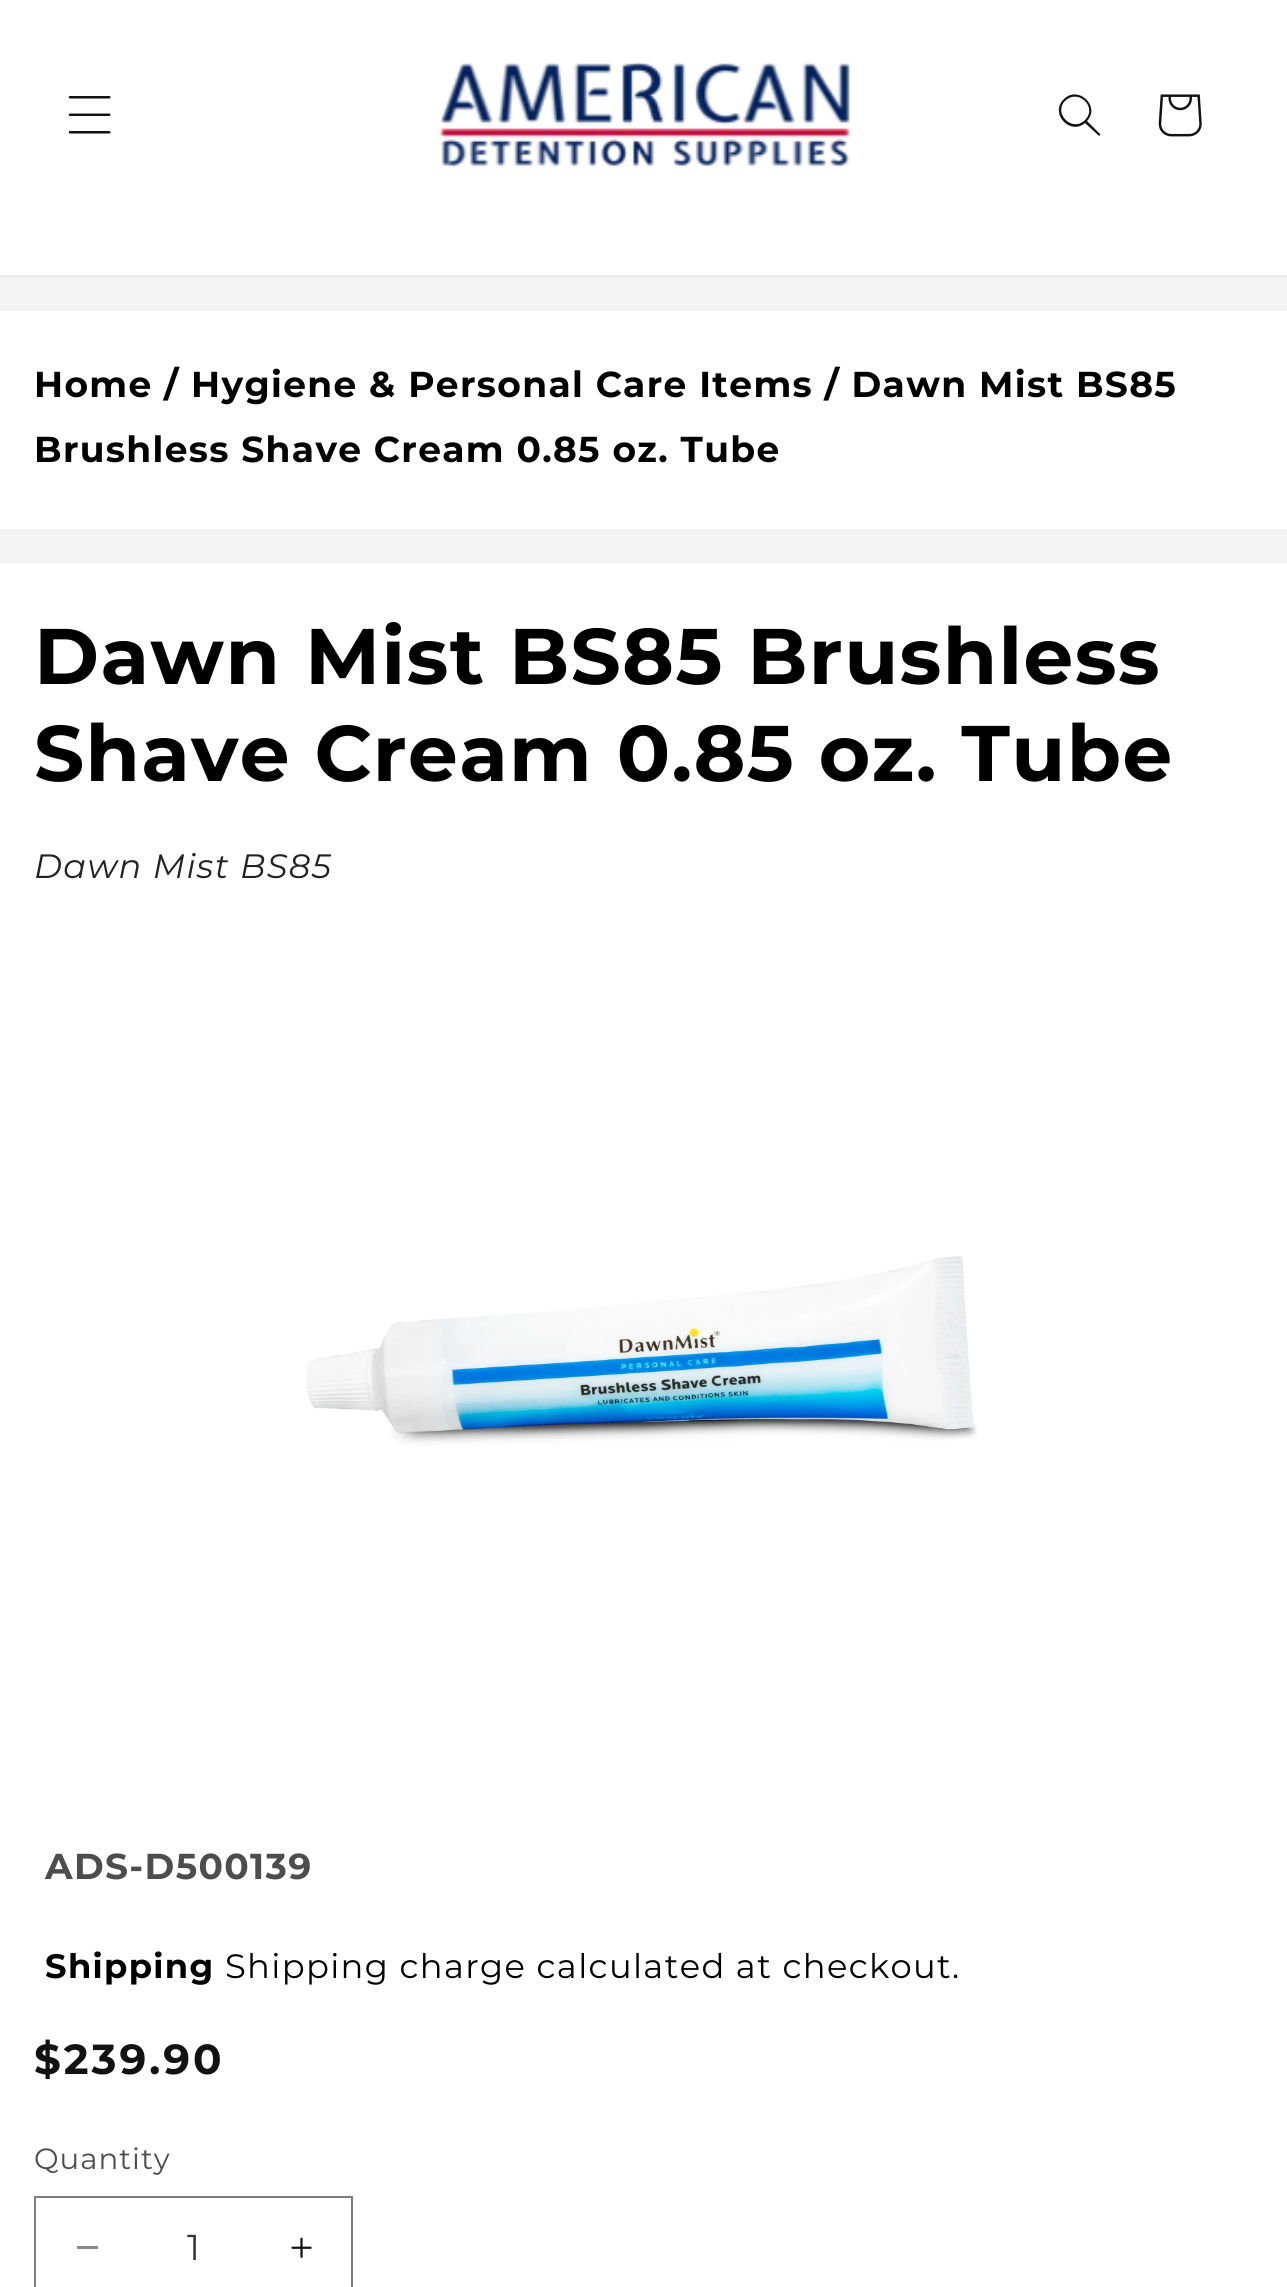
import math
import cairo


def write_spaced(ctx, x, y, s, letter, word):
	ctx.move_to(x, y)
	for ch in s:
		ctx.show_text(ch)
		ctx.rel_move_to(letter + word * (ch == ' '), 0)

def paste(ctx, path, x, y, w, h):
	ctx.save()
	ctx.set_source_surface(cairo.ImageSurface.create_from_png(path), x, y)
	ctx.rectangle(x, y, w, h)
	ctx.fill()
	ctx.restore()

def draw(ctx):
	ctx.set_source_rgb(1, 1, 1)
	ctx.paint()
	ctx.set_source_rgb(0.925, 0.925, 0.925)
	ctx.rectangle(0, 275, 1287, 2)
	ctx.fill()
	paste(ctx, 'media/1.png', 68, 96, 43, 38)
	paste(ctx, 'media/2.png', 439, 62, 411, 106)
	ctx.set_source_rgb(0.071, 0.071, 0.071)
	ctx.set_fill_rule(cairo.FILL_RULE_EVEN_ODD)
	ctx.new_path()
	ctx.move_to(1085, 120)
	ctx.curve_to(1072, 133, 1053, 113, 1065, 101)
	ctx.curve_to(1078, 88, 1098, 107, 1085, 120)
	ctx.move_to(1085, 123)
	ctx.curve_to(1070, 136, 1049, 113, 1064, 99)
	ctx.curve_to(1078, 85, 1101, 106, 1087, 121)
	ctx.line_to(1100, 134)
	ctx.curve_to(1101, 136, 1099, 136, 1098, 135)
	ctx.close_path()
	ctx.fill()
	paste(ctx, 'media/3.png', 1158, 94, 44, 43)
	ctx.set_source_rgb(0.953, 0.953, 0.953)
	ctx.rectangle(0, 277, 1287, 286)
	ctx.fill()
	ctx.set_source_rgb(1, 1, 1)
	ctx.rectangle(0, 311, 1287, 218)
	ctx.fill()
	ctx.select_font_face('Montserrat', cairo.FONT_SLANT_NORMAL, cairo.FONT_WEIGHT_BOLD)
	ctx.set_font_size(36)
	ctx.set_source_rgb(0, 0, 0)
	write_spaced(ctx, 34, 397, 'Home / Hygiene & Personal Care Items / Dawn Mist BS85', 1.35, 0)
	write_spaced(ctx, 34, 462, 'Brushless Shave Cream 0.85 oz. Tube', 1.35, 0)
	ctx.set_font_size(78.75)
	write_spaced(ctx, 34, 684, 'Dawn Mist BS85 Brushless', 1.35, 0)
	write_spaced(ctx, 34, 781, 'Shave Cream 0.85 oz. Tube', 1.35, 0)
	ctx.select_font_face('Montserrat', cairo.FONT_SLANT_ITALIC)
	ctx.set_font_size(33.75)
	ctx.set_source_rgb(0.133, 0.133, 0.133)
	write_spaced(ctx, 34, 878, 'Dawn Mist BS85', 1.35, 0)
	paste(ctx, 'media/4.png', 307, 1256, 671, 190)
	ctx.select_font_face('Montserrat', cairo.FONT_SLANT_NORMAL, cairo.FONT_WEIGHT_BOLD)
	ctx.set_font_size(36)
	ctx.set_source_rgb(0.302, 0.302, 0.302)
	write_spaced(ctx, 45, 1879, 'ADS-D500139', 1.35, 0)
	ctx.set_font_size(33.75)
	ctx.set_source_rgb(0, 0, 0)
	write_spaced(ctx, 45, 1978, 'Shipping', 1.35, 0)
	ctx.select_font_face('Montserrat')
	write_spaced(ctx, 225, 1978, 'Shipping charge calculated at checkout.', 1.35, 0)
	ctx.select_font_face('Montserrat', cairo.FONT_SLANT_NORMAL, cairo.FONT_WEIGHT_BOLD)
	ctx.set_font_size(42)
	ctx.set_source_rgb(0.071, 0.071, 0.071)
	write_spaced(ctx, 34, 2074, '$239.90', 3, 0)
	ctx.select_font_face('Montserrat')
	ctx.set_font_size(29.25)
	ctx.set_source_rgb(0.302, 0.302, 0.302)
	write_spaced(ctx, 34, 2169, 'Quantity', 1, 0)
	ctx.set_source_rgb(0.537, 0.537, 0.537)
	ctx.rectangle(77, 2246, 21, 3)
	ctx.fill()
	paste(ctx, 'media/5.png', 291, 2237, 21, 21)
	ctx.rectangle(35, 2197, 317, 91)
	ctx.set_source_rgb(0.49, 0.49, 0.49)
	ctx.stroke()
	ctx.set_font_size(36)
	ctx.set_source_rgb(0.212, 0.212, 0.212)
	ctx.move_to(187, 2260)
	ctx.show_text('1')


surface = cairo.ImageSurface(cairo.FORMAT_RGB24, 1287, 2287)
ctx = cairo.Context(surface)
options = cairo.FontOptions()
options.set_hint_metrics(cairo.HINT_METRICS_OFF)
options.set_hint_style(cairo.HINT_STYLE_NONE)
ctx.set_font_options(options)
ctx.set_miter_limit(4)
draw(ctx)
surface.write_to_png('image.png')
